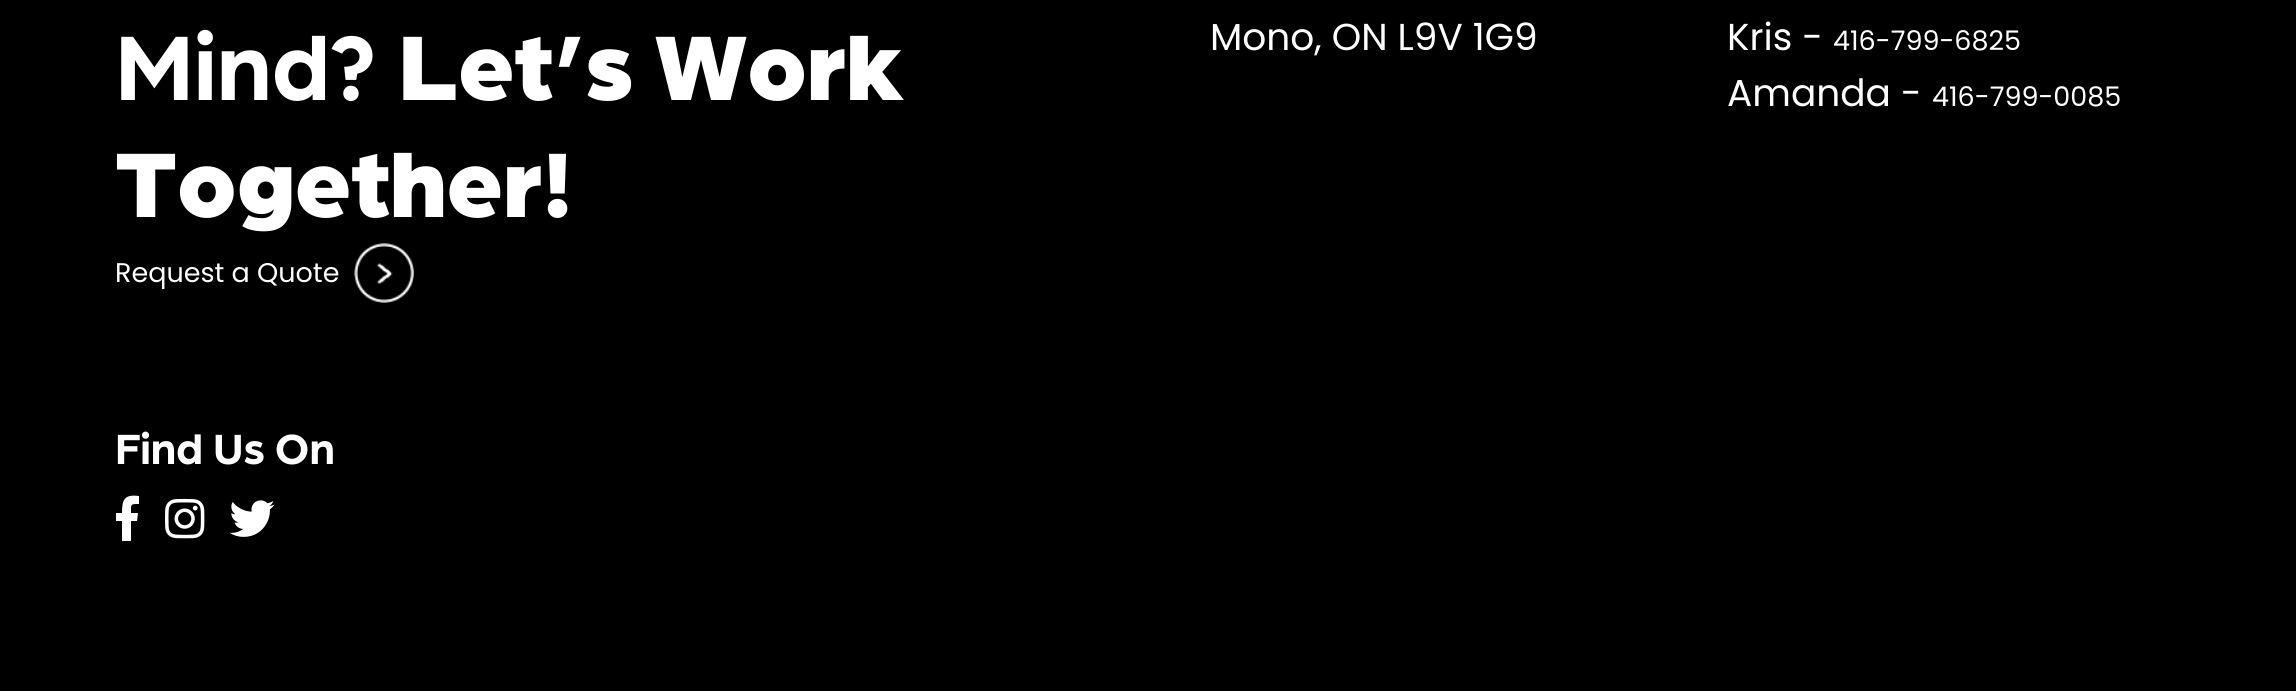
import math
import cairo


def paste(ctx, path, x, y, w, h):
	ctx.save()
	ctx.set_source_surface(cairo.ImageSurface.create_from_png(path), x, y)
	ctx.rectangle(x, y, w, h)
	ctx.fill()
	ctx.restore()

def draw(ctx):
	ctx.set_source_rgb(0, 0, 0)
	ctx.paint()
	ctx.select_font_face('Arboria', cairo.FONT_SLANT_NORMAL, cairo.FONT_WEIGHT_BOLD)
	ctx.set_font_size(97.5)
	ctx.set_source_rgb(1, 1, 1)
	ctx.move_to(115, 100)
	ctx.show_text('Mind?')
	ctx.select_font_face('Arboria Black')
	ctx.move_to(398, 100)
	ctx.show_text('Let’s Work')
	ctx.move_to(115, 217)
	ctx.show_text('Together!')
	ctx.select_font_face('Poppins')
	ctx.set_font_size(27)
	ctx.move_to(115, 282)
	ctx.show_text('Request a Quote')
	paste(ctx, 'media/1.png', 354, 243, 60, 60)
	ctx.set_font_size(37.5)
	ctx.move_to(1210, 50)
	ctx.show_text('Mono, ON L9V 1G9')
	ctx.move_to(1727, 50)
	ctx.show_text('Kris -')
	ctx.set_font_size(27)
	ctx.move_to(1833, 50)
	ctx.show_text('416-799-6825')
	ctx.set_font_size(37.5)
	ctx.move_to(1727, 106)
	ctx.show_text('Amanda -')
	ctx.set_font_size(27)
	ctx.move_to(1932, 106)
	ctx.show_text('416-799-0085')
	ctx.select_font_face('Arboria', cairo.FONT_SLANT_NORMAL, cairo.FONT_WEIGHT_BOLD)
	ctx.set_font_size(45)
	ctx.move_to(115, 464)
	ctx.show_text('Find Us On')
	ctx.new_path()
	ctx.move_to(122, 541)
	ctx.line_to(122, 521)
	ctx.line_to(116, 521)
	ctx.line_to(116, 513)
	ctx.line_to(122, 513)
	ctx.curve_to(122, 500, 124, 494, 139, 496)
	ctx.line_to(139, 504)
	ctx.curve_to(130, 504, 131, 504, 131, 513)
	ctx.line_to(138, 513)
	ctx.line_to(137, 521)
	ctx.line_to(131, 521)
	ctx.line_to(131, 541)
	ctx.close_path()
	ctx.fill()
	paste(ctx, 'media/2.png', 165, 498, 40, 41)
	paste(ctx, 'media/3.png', 229, 500, 46, 37)


surface = cairo.ImageSurface(cairo.FORMAT_RGB24, 2296, 691)
ctx = cairo.Context(surface)
options = cairo.FontOptions()
options.set_hint_metrics(cairo.HINT_METRICS_OFF)
options.set_hint_style(cairo.HINT_STYLE_NONE)
ctx.set_font_options(options)
ctx.set_miter_limit(4)
draw(ctx)
surface.write_to_png('image.png')
